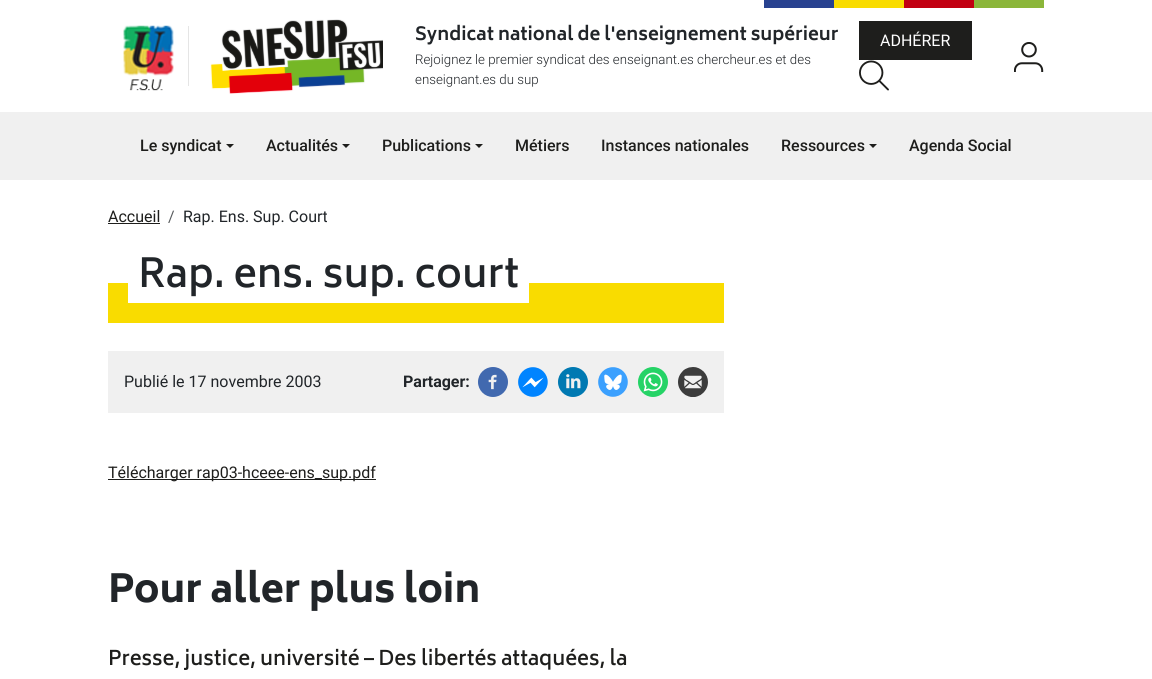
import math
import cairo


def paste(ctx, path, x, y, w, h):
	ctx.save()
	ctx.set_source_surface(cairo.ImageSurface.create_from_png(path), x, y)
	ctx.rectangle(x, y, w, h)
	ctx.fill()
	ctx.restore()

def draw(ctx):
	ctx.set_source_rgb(1, 1, 1)
	ctx.paint()
	ctx.set_source_rgb(0.157, 0.259, 0.565)
	ctx.rectangle(764, 0, 70, 8)
	ctx.fill()
	ctx.set_source_rgb(0.973, 0.863, 0)
	ctx.rectangle(834, 0, 70, 8)
	ctx.fill()
	ctx.set_source_rgb(0.761, 0, 0.071)
	ctx.rectangle(904, 0, 70, 8)
	ctx.fill()
	ctx.set_source_rgb(0.545, 0.714, 0.227)
	ctx.rectangle(974, 0, 70, 8)
	ctx.fill()
	paste(ctx, 'media/1.png', 123, 25, 51, 66)
	paste(ctx, 'media/2.png', 188, 19, 195, 75)
	ctx.select_font_face('Biryani', cairo.FONT_SLANT_NORMAL, cairo.FONT_WEIGHT_BOLD)
	ctx.set_font_size(18)
	ctx.set_source_rgb(0.129, 0.145, 0.161)
	ctx.move_to(415, 40)
	ctx.show_text('Syndicat national de l\'enseignement supérieur')
	ctx.select_font_face('Roboto Light')
	ctx.set_font_size(13.3)
	ctx.move_to(415, 64)
	ctx.show_text('Rejoignez le premier syndicat des enseignant.es chercheur.es et des')
	ctx.move_to(415, 84)
	ctx.show_text('enseignant.es du sup')
	ctx.rectangle(859.5, 21.5, 112, 38)
	ctx.set_source_rgb(0.118, 0.118, 0.11)
	ctx.set_line_width(1)
	ctx.stroke()
	ctx.rectangle(860, 22, 111, 37)
	ctx.fill()
	ctx.select_font_face('Roboto')
	ctx.set_font_size(16)
	ctx.set_source_rgb(1, 1, 1)
	ctx.move_to(880, 46)
	ctx.show_text('ADHÉRER')
	paste(ctx, 'media/3.png', 859, 60, 30, 31)
	paste(ctx, 'media/4.png', 1014, 42, 30, 30)
	ctx.set_source_rgb(0.941, 0.941, 0.941)
	ctx.rectangle(0, 112, 1152, 68)
	ctx.fill()
	ctx.select_font_face('Roboto Medium')
	ctx.set_source_rgb(0.118, 0.118, 0.11)
	ctx.move_to(140, 151)
	ctx.show_text('Le syndicat')
	ctx.new_path()
	ctx.move_to(226, 144)
	ctx.line_to(234, 144)
	ctx.line_to(230, 148)
	ctx.close_path()
	ctx.fill()
	ctx.move_to(266, 151)
	ctx.show_text('Actualités')
	ctx.new_path()
	ctx.move_to(342, 144)
	ctx.line_to(350, 144)
	ctx.line_to(346, 148)
	ctx.close_path()
	ctx.fill()
	ctx.move_to(382, 151)
	ctx.show_text('Publications')
	ctx.new_path()
	ctx.move_to(475, 144)
	ctx.line_to(483, 144)
	ctx.line_to(479, 148)
	ctx.close_path()
	ctx.fill()
	for x, y, s in [
		(515, 151, 'Métiers'),
		(601, 151, 'Instances nationales'),
		(781, 151, 'Ressources'),
	]:
		ctx.move_to(x, y)
		ctx.show_text(s)
	ctx.new_path()
	ctx.move_to(869, 144)
	ctx.line_to(877, 144)
	ctx.line_to(873, 148)
	ctx.close_path()
	ctx.fill()
	ctx.move_to(909, 151)
	ctx.show_text('Agenda Social')
	ctx.select_font_face('Roboto')
	ctx.move_to(108, 222)
	ctx.show_text('Accueil')
	ctx.rectangle(108, 223, 52, 1)
	ctx.fill()
	ctx.set_source_rgb(0.349, 0.361, 0.373)
	ctx.move_to(168, 222)
	ctx.show_text('/')
	ctx.set_source_rgb(0.129, 0.145, 0.161)
	ctx.move_to(183, 222)
	ctx.show_text('Rap. Ens. Sup. Court')
	ctx.set_source_rgb(0.973, 0.863, 0)
	ctx.rectangle(108, 283, 616, 40)
	ctx.fill()
	ctx.set_source_rgb(1, 1, 1)
	ctx.rectangle(128, 283, 401, 20)
	ctx.fill()
	ctx.select_font_face('Biryani SemiBold')
	ctx.set_font_size(39.25)
	ctx.set_source_rgb(0.129, 0.145, 0.161)
	ctx.move_to(138, 287)
	ctx.show_text('Rap. ens. sup. court')
	ctx.set_source_rgb(0.941, 0.941, 0.941)
	ctx.rectangle(108, 351, 616, 62)
	ctx.fill()
	ctx.select_font_face('Roboto')
	ctx.set_font_size(16)
	ctx.set_source_rgb(0.129, 0.145, 0.161)
	ctx.move_to(124, 387)
	ctx.show_text('Publié le 17 novembre 2003')
	ctx.select_font_face('Roboto', cairo.FONT_SLANT_NORMAL, cairo.FONT_WEIGHT_BOLD)
	ctx.move_to(403, 387)
	ctx.show_text('Partager:')
	paste(ctx, 'media/5.png', 478, 367, 30, 30)
	paste(ctx, 'media/6.png', 518, 367, 30, 30)
	paste(ctx, 'media/7.png', 558, 367, 30, 30)
	paste(ctx, 'media/8.png', 598, 367, 30, 30)
	paste(ctx, 'media/9.png', 638, 367, 30, 30)
	paste(ctx, 'media/10.png', 678, 367, 30, 30)
	ctx.set_source_rgb(0.118, 0.118, 0.11)
	ctx.rectangle(108, 479, 268, 1)
	ctx.fill()
	ctx.select_font_face('Roboto')
	ctx.move_to(108, 478)
	ctx.show_text('Télécharger rap03-hceee-ens_sup.pdf')
	ctx.select_font_face('Biryani ExtraBold')
	ctx.set_font_size(38)
	ctx.set_source_rgb(0.129, 0.145, 0.161)
	ctx.move_to(108, 602)
	ctx.show_text('Pour aller plus loin')
	ctx.select_font_face('Biryani SemiBold')
	ctx.set_font_size(20)
	ctx.set_source_rgb(0.118, 0.118, 0.11)
	ctx.move_to(108, 665)
	ctx.show_text('Presse, justice, université – Des libertés attaquées, la')


surface = cairo.ImageSurface(cairo.FORMAT_RGB24, 1152, 679)
ctx = cairo.Context(surface)
options = cairo.FontOptions()
options.set_hint_metrics(cairo.HINT_METRICS_OFF)
options.set_hint_style(cairo.HINT_STYLE_NONE)
ctx.set_font_options(options)
ctx.set_miter_limit(4)
draw(ctx)
surface.write_to_png('image.png')
